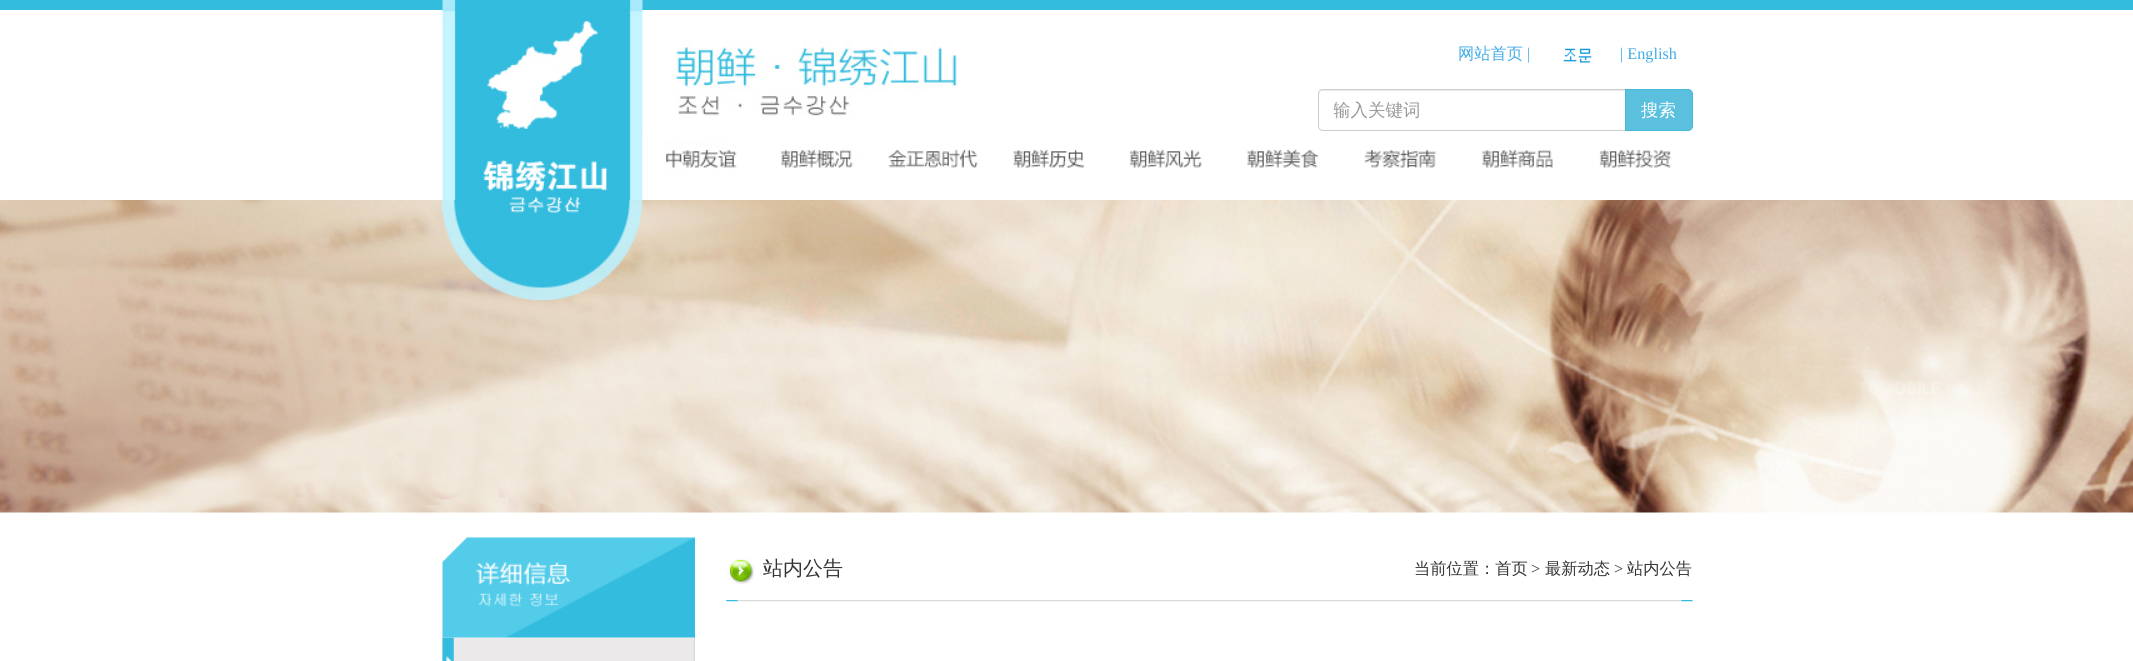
import math
import cairo


def paste(ctx, path, x, y, w, h):
	ctx.save()
	ctx.set_source_surface(cairo.ImageSurface.create_from_png(path), x, y)
	ctx.rectangle(x, y, w, h)
	ctx.fill()
	ctx.restore()

def draw(ctx):
	ctx.set_source_rgb(1, 1, 1)
	ctx.paint()
	ctx.set_source_rgb(0.2, 0.737, 0.871)
	ctx.rectangle(0, 0, 2133, 10)
	ctx.fill()
	paste(ctx, 'media/1.png', 442, 0, 201, 200)
	paste(ctx, 'media/2.png', 676, 40, 281, 76)
	ctx.select_font_face('WenQuanYi Zen Hei Medium')
	ctx.set_font_size(16.25)
	ctx.set_source_rgb(0.263, 0.675, 0.898)
	ctx.move_to(1458, 59)
	ctx.show_text('网站首页')
	ctx.select_font_face('Liberation Serif')
	ctx.move_to(1527, 59)
	ctx.show_text('|')
	paste(ctx, 'media/3.png', 1563, 48, 29, 15)
	ctx.move_to(1620, 59)
	ctx.show_text('| English')
	ctx.set_source_rgb(0.925, 0.925, 0.925)
	ctx.new_path()
	ctx.move_to(1322, 91)
	ctx.line_to(1625, 91)
	ctx.line_to(1625, 90)
	ctx.line_to(1323, 90)
	ctx.curve_to(1321, 90, 1319, 92, 1319, 94)
	ctx.line_to(1319, 95)
	ctx.curve_to(1319, 93, 1320, 91, 1322, 91)
	ctx.close_path()
	ctx.fill()
	ctx.new_path()
	ctx.move_to(1323, 89.5)
	ctx.line_to(1625.5, 89.5)
	ctx.line_to(1625.5, 130.5)
	ctx.line_to(1323, 130.5)
	ctx.curve_to(1320.5, 130.5, 1318.5, 128.5, 1318.5, 126)
	ctx.line_to(1318.5, 94)
	ctx.curve_to(1318.5, 91.5, 1320.5, 89.5, 1323, 89.5)
	ctx.close_path()
	ctx.set_source_rgb(0.8, 0.8, 0.8)
	ctx.set_line_width(1)
	ctx.stroke()
	ctx.save()
	ctx.rectangle(1334, 100, 276, 23)
	ctx.clip()
	ctx.select_font_face('WenQuanYi Zen Hei Medium')
	ctx.set_font_size(17.5)
	ctx.set_source_rgb(0.6, 0.6, 0.6)
	ctx.move_to(1333, 116)
	ctx.show_text('输入关键词')
	ctx.restore()
	ctx.set_source_rgb(0.357, 0.753, 0.871)
	ctx.new_path()
	ctx.move_to(1625.5, 89.5)
	ctx.line_to(1688, 89.5)
	ctx.curve_to(1690.5, 89.5, 1692.5, 91.5, 1692.5, 94)
	ctx.line_to(1692.5, 126)
	ctx.curve_to(1692.5, 128.5, 1690.5, 130.5, 1688, 130.5)
	ctx.line_to(1625.5, 130.5)
	ctx.close_path()
	ctx.fill_preserve()
	ctx.set_source_rgb(0.275, 0.722, 0.855)
	ctx.stroke()
	ctx.select_font_face('WenQuanYi Zen Hei Medium')
	ctx.set_font_size(17.5)
	ctx.set_source_rgb(1, 1, 1)
	ctx.move_to(1641, 116)
	ctx.show_text('搜索')
	paste(ctx, 'media/4.png', 642, 131, 95, 69)
	paste(ctx, 'media/5.png', 781, 144, 79, 24)
	paste(ctx, 'media/6.png', 888, 149, 90, 19)
	paste(ctx, 'media/7.png', 1013, 149, 72, 19)
	paste(ctx, 'media/8.png', 1129, 149, 73, 19)
	paste(ctx, 'media/9.png', 1247, 149, 72, 19)
	paste(ctx, 'media/10.png', 1364, 144, 73, 24)
	paste(ctx, 'media/11.png', 1482, 144, 71, 24)
	paste(ctx, 'media/12.png', 1599, 149, 73, 19)
	paste(ctx, 'media/13.png', 0, 200, 2133, 313)
	paste(ctx, 'media/15.png', 442, 637, 253, 24)
	paste(ctx, 'media/16.png', 442, 637, 253, 24)
	paste(ctx, 'media/14.png', 442, 537, 253, 101)
	paste(ctx, 'media/17.png', 726, 557, 30, 27)
	ctx.set_font_size(20)
	ctx.set_source_rgb(0.2, 0.2, 0.2)
	ctx.move_to(763, 575)
	ctx.show_text('站内公告')
	ctx.set_font_size(16.25)
	ctx.move_to(1414, 574)
	ctx.show_text('当前位置：首页')
	ctx.select_font_face('Liberation Serif')
	ctx.move_to(1531, 574)
	ctx.show_text('>')
	ctx.select_font_face('WenQuanYi Zen Hei Medium')
	ctx.move_to(1545, 574)
	ctx.show_text('最新动态')
	ctx.select_font_face('Liberation Serif')
	ctx.move_to(1614, 574)
	ctx.show_text('>')
	ctx.select_font_face('WenQuanYi Zen Hei Medium')
	ctx.move_to(1627, 574)
	ctx.show_text('站内公告')
	paste(ctx, 'media/18.png', 726, 600, 967, 2)


surface = cairo.ImageSurface(cairo.FORMAT_RGB24, 2133, 661)
ctx = cairo.Context(surface)
options = cairo.FontOptions()
options.set_hint_metrics(cairo.HINT_METRICS_OFF)
options.set_hint_style(cairo.HINT_STYLE_NONE)
ctx.set_font_options(options)
ctx.set_miter_limit(4)
draw(ctx)
surface.write_to_png('image.png')
